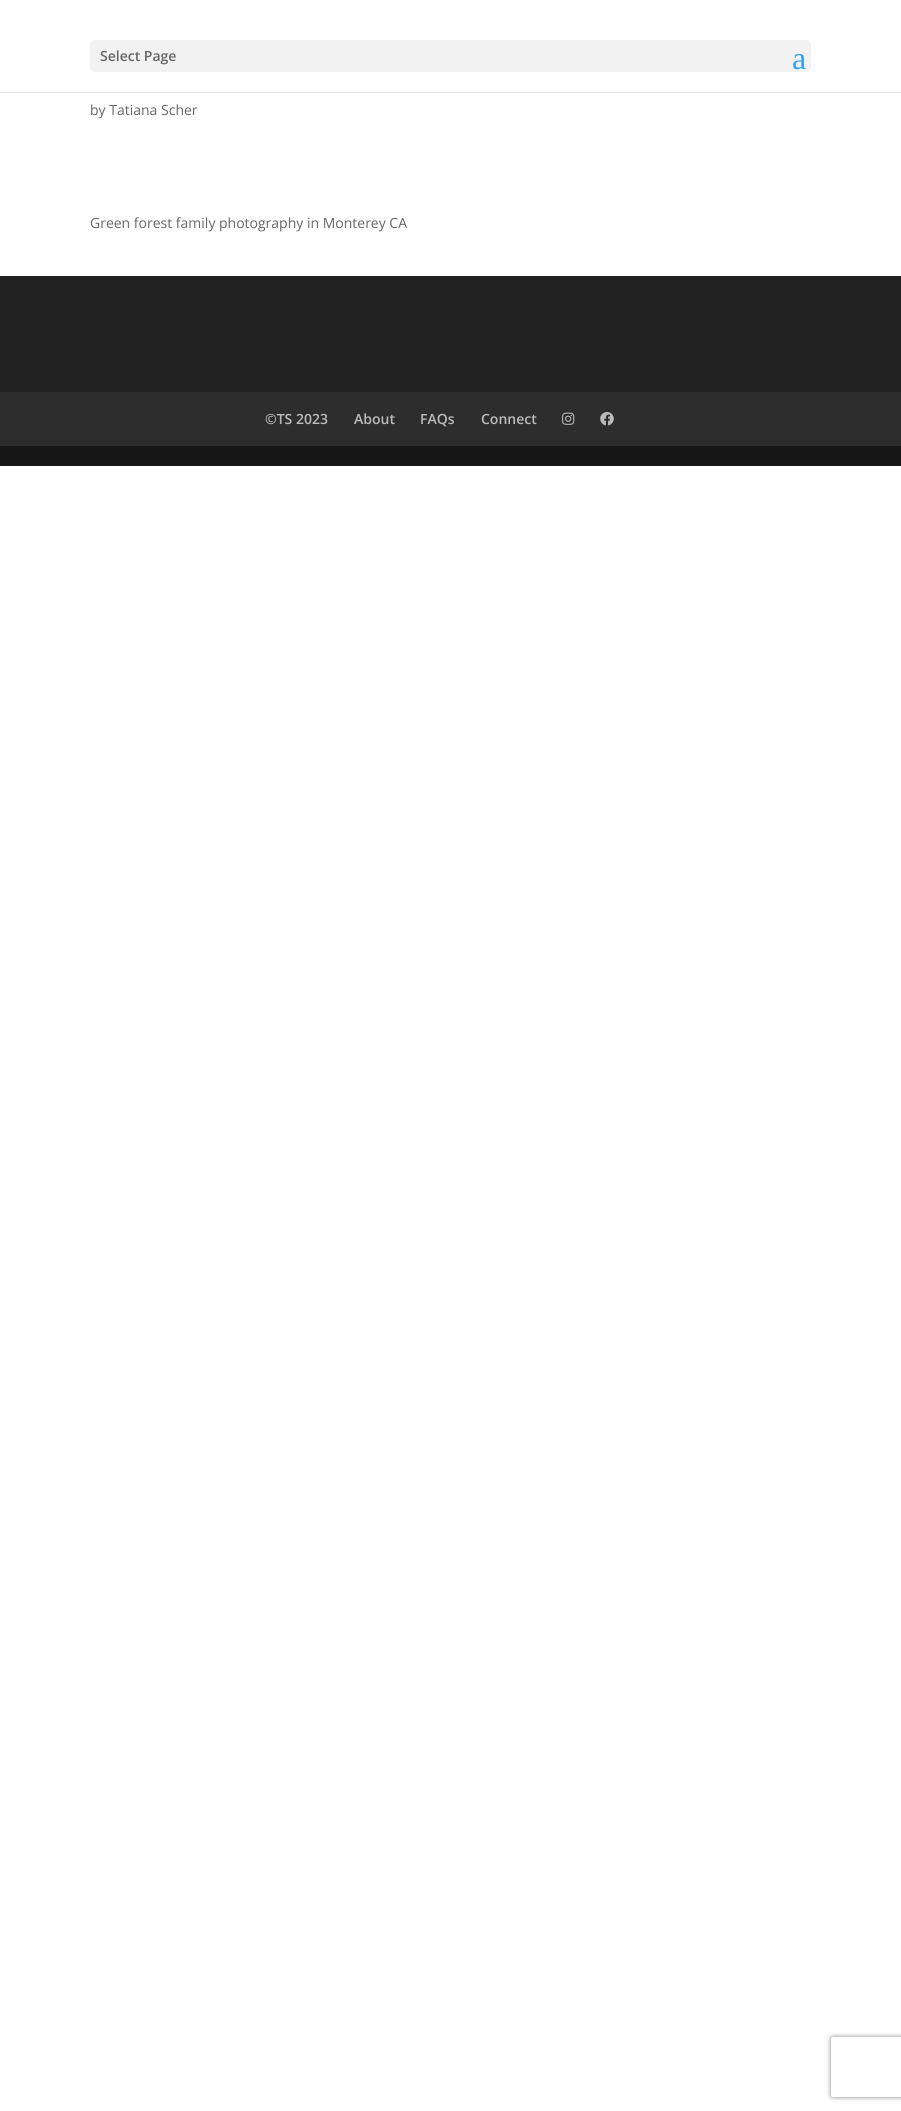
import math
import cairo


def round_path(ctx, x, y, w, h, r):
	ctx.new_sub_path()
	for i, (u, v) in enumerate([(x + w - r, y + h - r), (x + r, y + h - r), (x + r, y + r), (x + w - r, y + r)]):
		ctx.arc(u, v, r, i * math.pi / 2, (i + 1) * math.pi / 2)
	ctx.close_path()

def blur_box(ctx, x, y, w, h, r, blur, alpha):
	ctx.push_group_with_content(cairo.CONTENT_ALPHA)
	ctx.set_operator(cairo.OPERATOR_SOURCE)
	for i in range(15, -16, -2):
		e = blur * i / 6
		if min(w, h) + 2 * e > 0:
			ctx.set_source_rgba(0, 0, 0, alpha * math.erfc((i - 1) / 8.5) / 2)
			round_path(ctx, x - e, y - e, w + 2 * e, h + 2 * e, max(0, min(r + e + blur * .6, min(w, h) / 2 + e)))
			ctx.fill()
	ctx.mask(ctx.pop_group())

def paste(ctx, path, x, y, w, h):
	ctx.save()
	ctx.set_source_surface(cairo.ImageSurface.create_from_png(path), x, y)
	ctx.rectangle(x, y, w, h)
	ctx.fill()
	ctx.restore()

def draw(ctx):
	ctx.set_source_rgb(1, 1, 1)
	ctx.paint()
	ctx.set_source_rgb(0.902, 0.902, 0.902)
	ctx.rectangle(0, 92, 901, 1)
	ctx.fill()
	ctx.set_source_rgb(0.949, 0.949, 0.949)
	round_path(ctx, 90, 40, 721, 32, 5)
	ctx.fill()
	ctx.select_font_face('Open Sans SemiBold')
	ctx.set_font_size(14)
	ctx.set_source_rgb(0.4, 0.4, 0.4)
	ctx.move_to(100, 61)
	ctx.show_text('Select Page')
	ctx.select_font_face('Liberation Serif')
	ctx.set_font_size(32)
	ctx.set_source_rgb(0.18, 0.639, 0.949)
	ctx.move_to(792, 69)
	ctx.show_text('a')
	ctx.select_font_face('Open Sans')
	ctx.set_font_size(14)
	ctx.set_source_rgb(0.4, 0.4, 0.4)
	ctx.move_to(90, 115)
	ctx.show_text('by Tatiana Scher')
	ctx.move_to(90, 228)
	ctx.show_text('Green forest family photography in Monterey CA')
	ctx.set_source_rgb(0.133, 0.133, 0.133)
	ctx.rectangle(0, 276, 901, 116)
	ctx.fill()
	ctx.set_source_rgb(0.176, 0.176, 0.176)
	ctx.rectangle(0, 392, 901, 54)
	ctx.fill()
	ctx.select_font_face('Open Sans SemiBold')
	ctx.set_source_rgb(0.733, 0.733, 0.733)
	for x, y, s in [
		(265, 424, '©TS 2023'),
		(354, 424, 'About'),
		(420, 424, 'FAQs'),
		(481, 424, 'Connect'),
	]:
		ctx.move_to(x, y)
		ctx.show_text(s)
	paste(ctx, 'media/1.png', 562, 412, 13, 13)
	paste(ctx, 'media/2.png', 600, 412, 14, 14)
	ctx.set_source_rgb(0.09, 0.09, 0.09)
	ctx.rectangle(0, 446, 901, 20)
	ctx.fill()
	ctx.save()
	ctx.set_fill_rule(cairo.FILL_RULE_EVEN_ODD)
	ctx.new_path()
	ctx.move_to(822, 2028)
	ctx.line_to(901, 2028)
	ctx.line_to(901, 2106)
	ctx.line_to(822, 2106)
	ctx.close_path()
	ctx.move_to(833, 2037)
	ctx.line_to(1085, 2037)
	ctx.curve_to(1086, 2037, 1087, 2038, 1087, 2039)
	ctx.line_to(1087, 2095)
	ctx.curve_to(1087, 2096, 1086, 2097, 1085, 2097)
	ctx.line_to(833, 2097)
	ctx.curve_to(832, 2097, 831, 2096, 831, 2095)
	ctx.line_to(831, 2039)
	ctx.curve_to(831, 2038, 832, 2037, 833, 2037)
	ctx.close_path()
	ctx.clip()
	ctx.set_source_rgb(0.502, 0.502, 0.502)
	blur_box(ctx, 831, 2037, 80, 60, 2, 2.5, 1)
	ctx.restore()


surface = cairo.ImageSurface(cairo.FORMAT_RGB24, 901, 2111)
ctx = cairo.Context(surface)
options = cairo.FontOptions()
options.set_hint_metrics(cairo.HINT_METRICS_OFF)
options.set_hint_style(cairo.HINT_STYLE_NONE)
ctx.set_font_options(options)
ctx.set_miter_limit(4)
draw(ctx)
surface.write_to_png('image.png')
